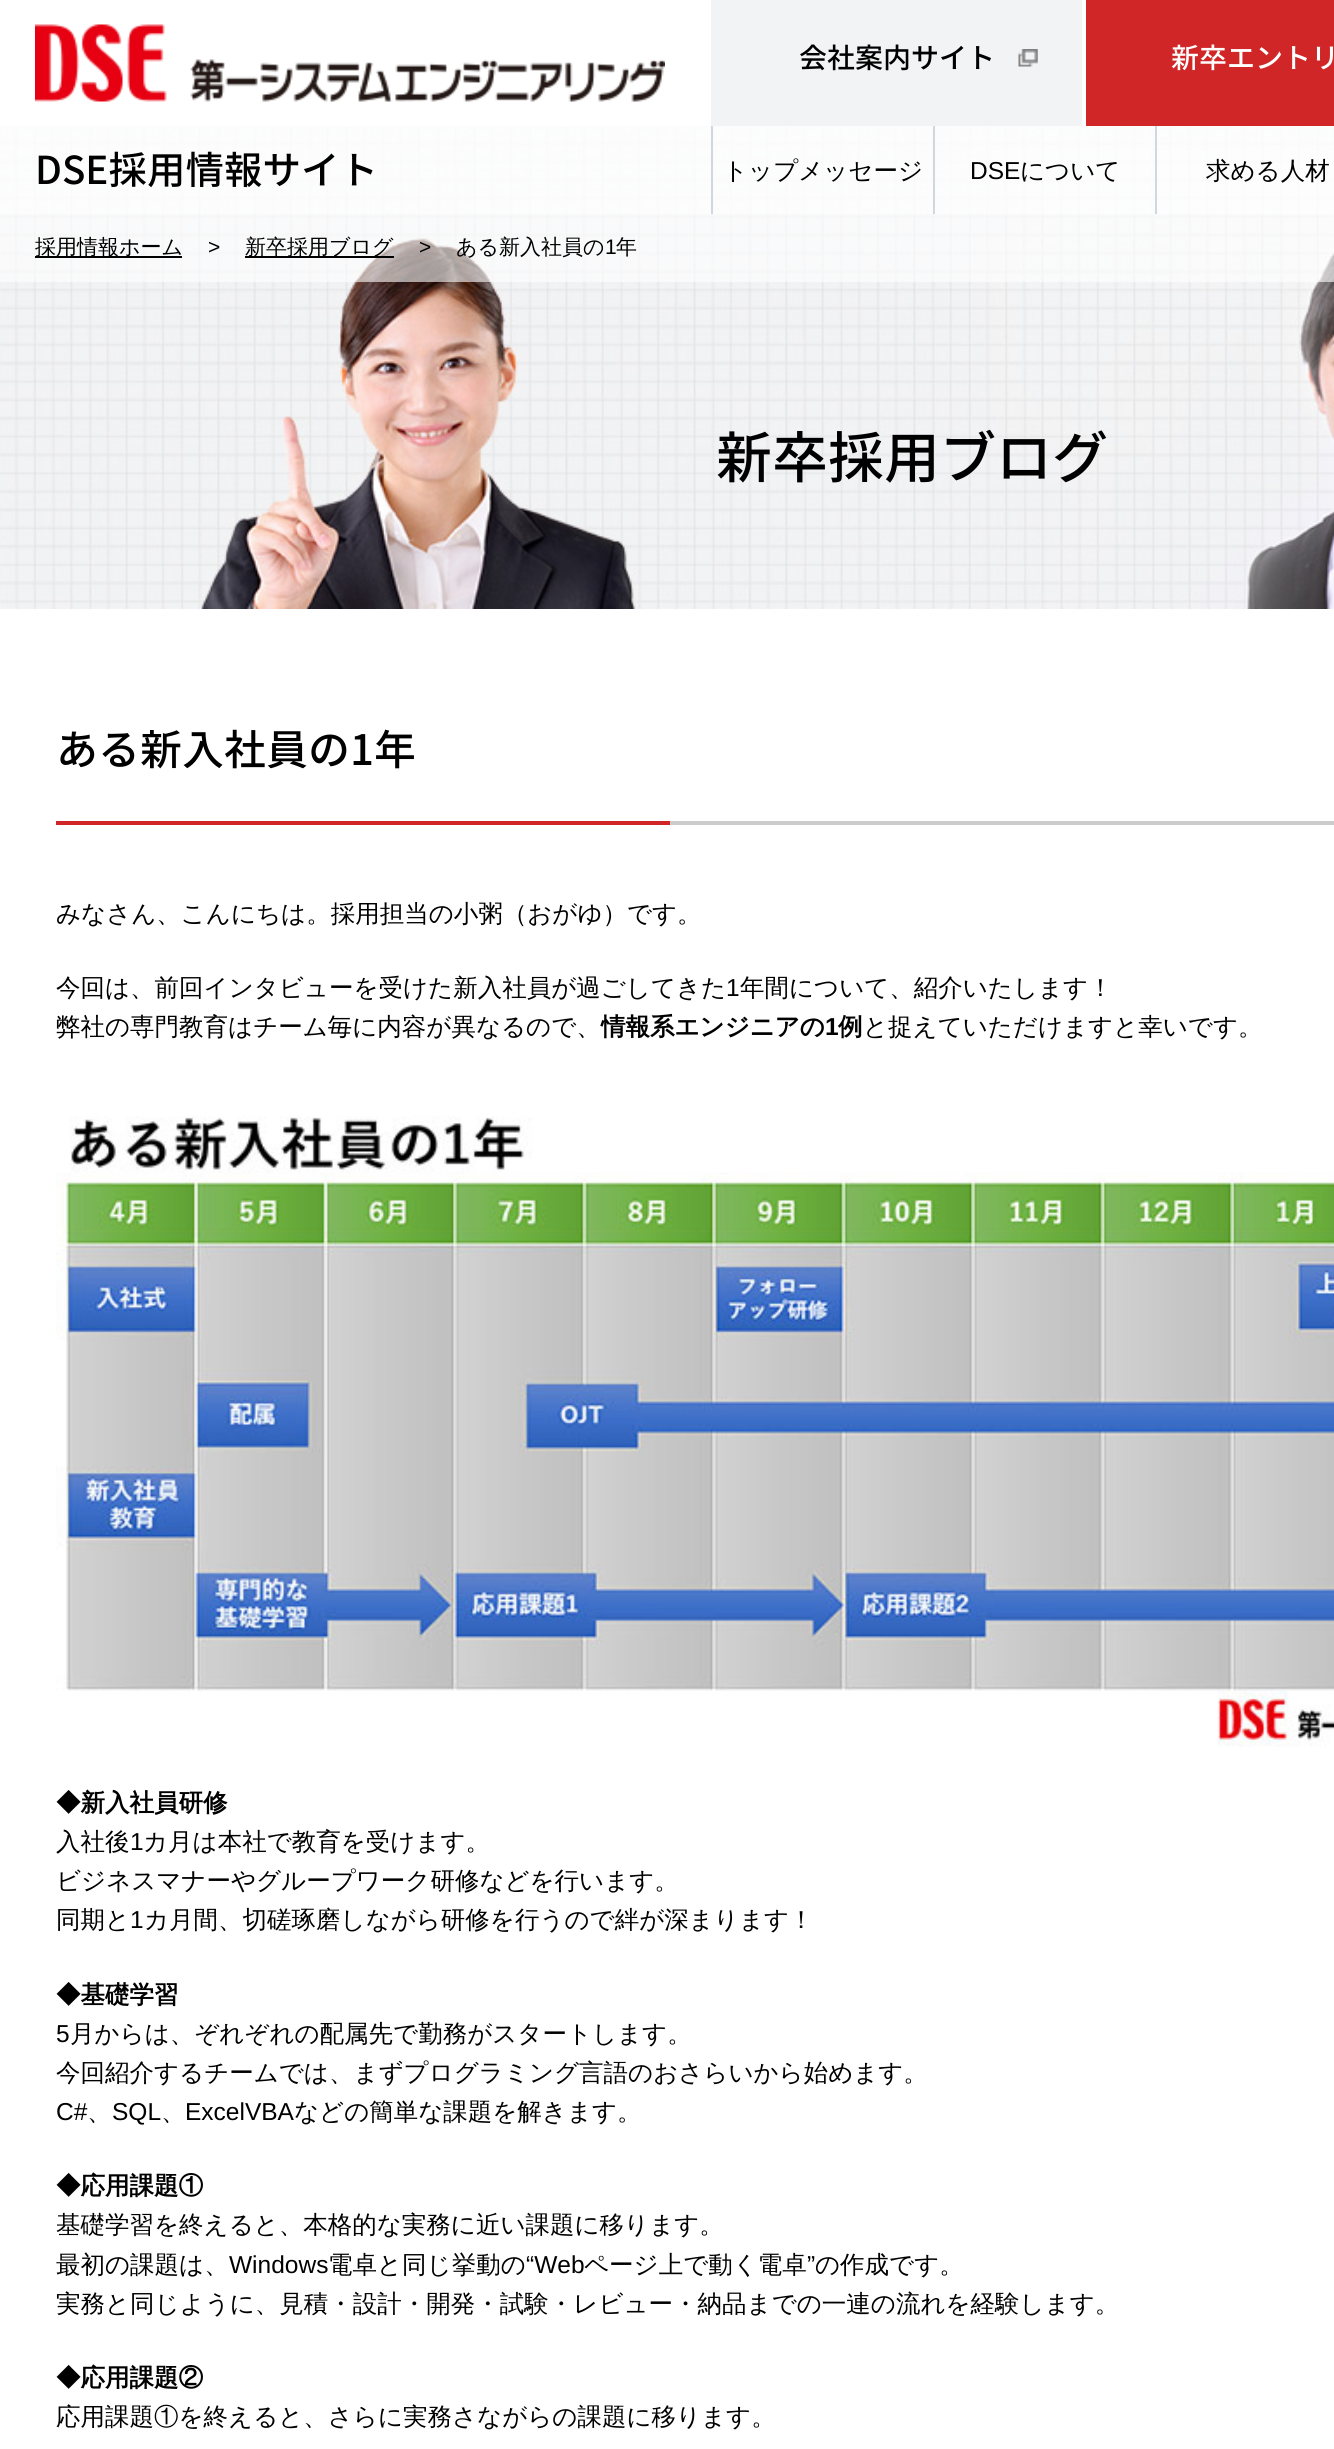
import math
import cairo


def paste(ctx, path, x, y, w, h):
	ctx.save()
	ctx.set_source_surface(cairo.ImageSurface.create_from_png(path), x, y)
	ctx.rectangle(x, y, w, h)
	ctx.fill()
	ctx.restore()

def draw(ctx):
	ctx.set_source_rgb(1, 1, 1)
	ctx.paint()
	paste(ctx, 'media/1.png', 35, 24, 630, 78)
	ctx.set_source_rgb(0.949, 0.953, 0.957)
	ctx.rectangle(711, 0, 371, 126)
	ctx.fill()
	paste(ctx, 'media/2.png', 1018, 49, 20, 18)
	ctx.select_font_face('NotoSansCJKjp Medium')
	ctx.set_font_size(28)
	ctx.set_source_rgb(0, 0, 0)
	ctx.move_to(799, 68)
	ctx.show_text('会社案内サイト')
	ctx.set_source_rgb(0.816, 0.149, 0.153)
	ctx.rectangle(1086, 0, 248, 126)
	ctx.fill()
	ctx.set_source_rgb(1, 1, 1)
	ctx.move_to(1171, 68)
	ctx.show_text('新卒エントリ')
	paste(ctx, 'media/3.png', 0, 126, 1334, 483)
	ctx.set_source_rgba(1, 1, 1, 0.8)
	ctx.rectangle(0, 126, 1334, 88)
	ctx.fill()
	ctx.set_font_size(38.5)
	ctx.set_source_rgb(0, 0, 0)
	ctx.move_to(35, 184)
	ctx.show_text('DSE採用情報サイト')
	ctx.set_source_rgb(0.816, 0.843, 0.867)
	ctx.rectangle(711, 126, 2, 88)
	ctx.fill()
	ctx.rectangle(933, 126, 2, 88)
	ctx.fill()
	ctx.select_font_face('WenQuanYi Zen Hei Medium')
	ctx.set_font_size(24.5)
	ctx.set_source_rgb(0, 0, 0)
	ctx.move_to(723, 179)
	ctx.show_text('トップメッセージ')
	ctx.set_source_rgb(0.816, 0.843, 0.867)
	ctx.rectangle(1155, 126, 2, 88)
	ctx.fill()
	ctx.select_font_face('Liberation Sans')
	ctx.set_source_rgb(0, 0, 0)
	ctx.move_to(970, 179)
	ctx.show_text('DSE')
	ctx.select_font_face('WenQuanYi Zen Hei Medium')
	ctx.move_to(1020, 179)
	ctx.show_text('について')
	ctx.move_to(1206, 179)
	ctx.show_text('求める人材')
	ctx.set_source_rgba(1, 1, 1, 0.6)
	ctx.rectangle(0, 214, 1334, 68)
	ctx.fill()
	ctx.set_source_rgb(0, 0, 0)
	ctx.rectangle(35, 256, 147, 2)
	ctx.fill()
	ctx.set_font_size(21)
	ctx.move_to(35, 254)
	ctx.show_text('採用情報ホーム')
	ctx.select_font_face('Liberation Sans')
	ctx.move_to(208, 254)
	ctx.show_text('>')
	ctx.rectangle(245, 256, 149, 2)
	ctx.fill()
	ctx.select_font_face('WenQuanYi Zen Hei Medium')
	ctx.move_to(245, 254)
	ctx.show_text('新卒採用ブログ')
	ctx.select_font_face('Liberation Sans')
	ctx.move_to(419, 254)
	ctx.show_text('>')
	ctx.select_font_face('WenQuanYi Zen Hei Medium')
	ctx.move_to(456, 254)
	ctx.show_text('ある新入社員の')
	ctx.select_font_face('Liberation Sans')
	ctx.move_to(605, 254)
	ctx.show_text('1')
	ctx.select_font_face('WenQuanYi Zen Hei Medium')
	ctx.move_to(616, 254)
	ctx.show_text('年')
	ctx.select_font_face('NotoSansCJKjp Medium')
	ctx.set_font_size(56)
	ctx.move_to(716, 478)
	ctx.show_text('新卒採用ブログ')
	ctx.set_source_rgb(0.8, 0.8, 0.8)
	ctx.rectangle(670, 821, 664, 4)
	ctx.fill()
	ctx.set_font_size(42)
	ctx.set_source_rgb(0, 0, 0)
	ctx.move_to(56, 765)
	ctx.show_text('ある新入社員の1年')
	ctx.set_source_rgb(0.816, 0.149, 0.153)
	ctx.rectangle(56, 821, 614, 4)
	ctx.fill()
	ctx.select_font_face('WenQuanYi Zen Hei Medium')
	ctx.set_font_size(24.5)
	ctx.set_source_rgb(0, 0, 0)
	ctx.move_to(56, 922)
	ctx.show_text('みなさん、こんにちは。採用担当の小粥（おがゆ）です。')
	ctx.move_to(56, 996)
	ctx.show_text('今回は、前回インタビューを受けた新入社員が過ごしてきた')
	ctx.select_font_face('Liberation Sans')
	ctx.move_to(726, 996)
	ctx.show_text('1')
	ctx.select_font_face('WenQuanYi Zen Hei Medium')
	ctx.move_to(740, 996)
	ctx.show_text('年間について、紹介いたします！')
	ctx.move_to(56, 1035)
	ctx.show_text('弊社の専門教育はチーム毎に内容が異なるので、')
	ctx.select_font_face('WenQuanYi Zen Hei', cairo.FONT_SLANT_NORMAL, cairo.FONT_WEIGHT_BOLD)
	ctx.move_to(601, 1035)
	ctx.show_text('情報系エンジニアの')
	ctx.select_font_face('Liberation Sans', cairo.FONT_SLANT_NORMAL, cairo.FONT_WEIGHT_BOLD)
	ctx.move_to(825, 1035)
	ctx.show_text('1')
	ctx.select_font_face('WenQuanYi Zen Hei', cairo.FONT_SLANT_NORMAL, cairo.FONT_WEIGHT_BOLD)
	ctx.move_to(838, 1035)
	ctx.show_text('例')
	ctx.select_font_face('WenQuanYi Zen Hei Medium')
	ctx.move_to(863, 1035)
	ctx.show_text('と捉えていただけますと幸いです。')
	paste(ctx, 'media/4.png', 56, 1116, 1278, 631)
	ctx.select_font_face('WenQuanYi Zen Hei', cairo.FONT_SLANT_NORMAL, cairo.FONT_WEIGHT_BOLD)
	ctx.move_to(56, 1811)
	ctx.show_text('◆新入社員研修')
	ctx.select_font_face('WenQuanYi Zen Hei Medium')
	ctx.move_to(56, 1850)
	ctx.show_text('入社後')
	ctx.select_font_face('Liberation Sans')
	ctx.move_to(130, 1850)
	ctx.show_text('1')
	ctx.select_font_face('WenQuanYi Zen Hei Medium')
	for x, y, s in [
		(143, 1850, 'カ月は本社で教育を受けます。'),
		(56, 1889, 'ビジネスマナーやグループワーク研修などを行います。'),
		(56, 1928, '同期と'),
	]:
		ctx.move_to(x, y)
		ctx.show_text(s)
	ctx.select_font_face('Liberation Sans')
	ctx.move_to(130, 1928)
	ctx.show_text('1')
	ctx.select_font_face('WenQuanYi Zen Hei Medium')
	ctx.move_to(144, 1928)
	ctx.show_text('カ月間、切磋琢磨しながら研修を行うので絆が深まります！')
	ctx.select_font_face('WenQuanYi Zen Hei', cairo.FONT_SLANT_NORMAL, cairo.FONT_WEIGHT_BOLD)
	ctx.move_to(56, 2003)
	ctx.show_text('◆基礎学習')
	ctx.select_font_face('Liberation Sans')
	ctx.move_to(56, 2042)
	ctx.show_text('5')
	ctx.select_font_face('WenQuanYi Zen Hei Medium')
	ctx.move_to(70, 2042)
	ctx.show_text('月からは、ぞれぞれの配属先で勤務がスタートします。')
	ctx.move_to(56, 2081)
	ctx.show_text('今回紹介するチームでは、まずプログラミング言語のおさらいから始めます。')
	ctx.select_font_face('Liberation Sans')
	ctx.move_to(56, 2120)
	ctx.show_text('C#')
	ctx.select_font_face('WenQuanYi Zen Hei Medium')
	ctx.move_to(87, 2120)
	ctx.show_text('、')
	ctx.select_font_face('Liberation Sans')
	ctx.move_to(112, 2120)
	ctx.show_text('SQL')
	ctx.select_font_face('WenQuanYi Zen Hei Medium')
	ctx.move_to(161, 2120)
	ctx.show_text('、')
	ctx.select_font_face('Liberation Sans')
	ctx.move_to(185, 2120)
	ctx.show_text('ExcelVBA')
	ctx.select_font_face('WenQuanYi Zen Hei Medium')
	ctx.move_to(294, 2120)
	ctx.show_text('などの簡単な課題を解きます。')
	ctx.select_font_face('WenQuanYi Zen Hei', cairo.FONT_SLANT_NORMAL, cairo.FONT_WEIGHT_BOLD)
	ctx.move_to(56, 2194)
	ctx.show_text('◆応用課題①')
	ctx.select_font_face('WenQuanYi Zen Hei Medium')
	ctx.move_to(56, 2233)
	ctx.show_text('基礎学習を終えると、本格的な実務に近い課題に移ります。')
	ctx.move_to(56, 2273)
	ctx.show_text('最初の課題は、')
	ctx.select_font_face('Liberation Sans')
	ctx.move_to(229, 2273)
	ctx.show_text('Windows')
	ctx.select_font_face('WenQuanYi Zen Hei Medium')
	ctx.move_to(328, 2273)
	ctx.show_text('電卓と同じ挙動の')
	ctx.select_font_face('Liberation Sans')
	ctx.move_to(526, 2273)
	ctx.show_text('“Web')
	ctx.select_font_face('WenQuanYi Zen Hei Medium')
	ctx.move_to(584, 2273)
	ctx.show_text('ページ上で動く電卓')
	ctx.select_font_face('Liberation Sans')
	ctx.move_to(807, 2273)
	ctx.show_text('”')
	ctx.select_font_face('WenQuanYi Zen Hei Medium')
	ctx.move_to(815, 2273)
	ctx.show_text('の作成です。')
	ctx.move_to(56, 2312)
	ctx.show_text('実務と同じように、見積・設計・開発・試験・レビュー・納品までの一連の流れを経験します。')
	ctx.select_font_face('WenQuanYi Zen Hei', cairo.FONT_SLANT_NORMAL, cairo.FONT_WEIGHT_BOLD)
	ctx.move_to(56, 2386)
	ctx.show_text('◆応用課題②')
	ctx.select_font_face('WenQuanYi Zen Hei Medium')
	ctx.move_to(56, 2425)
	ctx.show_text('応用課題①を終えると、さらに実務さながらの課題に移ります。')


surface = cairo.ImageSurface(cairo.FORMAT_RGB24, 1334, 2449)
ctx = cairo.Context(surface)
options = cairo.FontOptions()
options.set_hint_metrics(cairo.HINT_METRICS_OFF)
options.set_hint_style(cairo.HINT_STYLE_NONE)
ctx.set_font_options(options)
ctx.set_miter_limit(4)
draw(ctx)
surface.write_to_png('image.png')
